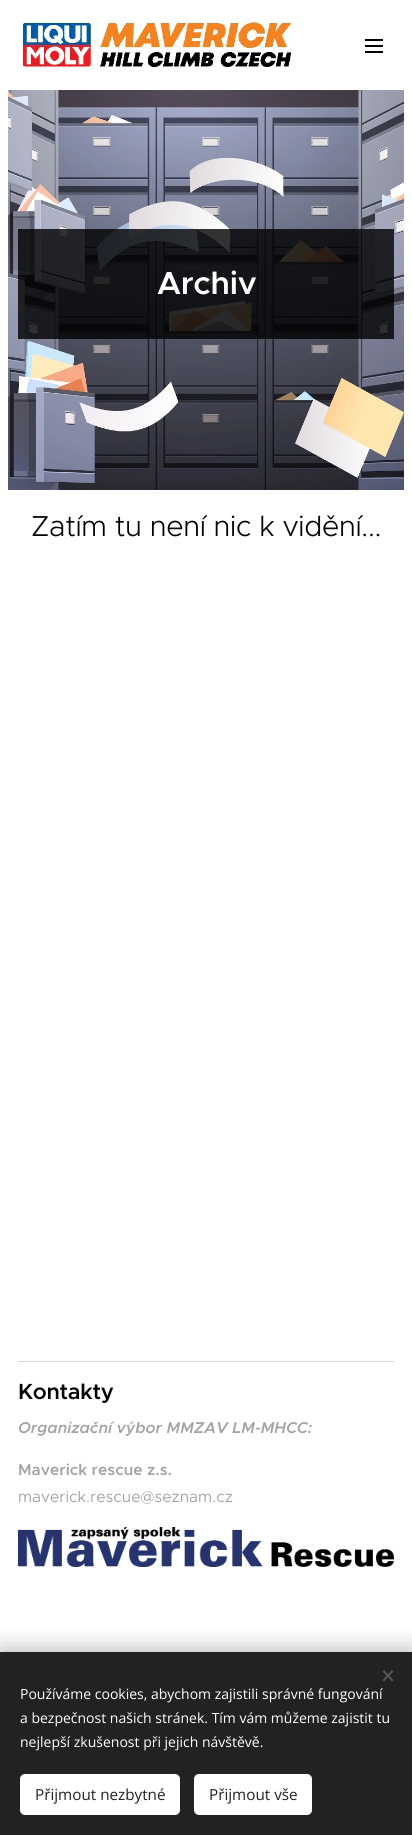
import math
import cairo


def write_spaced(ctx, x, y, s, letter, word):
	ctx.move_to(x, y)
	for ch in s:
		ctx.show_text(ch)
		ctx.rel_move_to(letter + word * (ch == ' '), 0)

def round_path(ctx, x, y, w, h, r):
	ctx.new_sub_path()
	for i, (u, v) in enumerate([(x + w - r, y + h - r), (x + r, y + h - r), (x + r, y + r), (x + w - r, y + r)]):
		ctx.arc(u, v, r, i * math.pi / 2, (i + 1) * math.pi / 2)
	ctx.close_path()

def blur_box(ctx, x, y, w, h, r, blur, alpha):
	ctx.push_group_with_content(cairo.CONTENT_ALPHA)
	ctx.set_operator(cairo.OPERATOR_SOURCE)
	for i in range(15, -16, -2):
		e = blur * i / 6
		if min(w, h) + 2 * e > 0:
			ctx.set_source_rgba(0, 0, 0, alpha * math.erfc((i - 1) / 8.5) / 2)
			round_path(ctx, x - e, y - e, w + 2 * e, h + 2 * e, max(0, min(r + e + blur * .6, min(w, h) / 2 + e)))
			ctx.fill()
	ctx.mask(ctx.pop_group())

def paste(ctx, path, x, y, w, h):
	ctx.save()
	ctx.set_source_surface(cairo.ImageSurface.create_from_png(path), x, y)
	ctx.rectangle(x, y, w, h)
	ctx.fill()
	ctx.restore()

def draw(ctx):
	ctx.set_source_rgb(1, 1, 1)
	ctx.paint()
	paste(ctx, 'media/1.png', 22, 20, 271, 50)
	ctx.set_source_rgb(0.012, 0.012, 0.012)
	ctx.rectangle(365, 45, 18, 2)
	ctx.rectangle(365, 39, 18, 2)
	ctx.rectangle(365, 51, 18, 2)
	ctx.fill()
	paste(ctx, 'media/2.png', 8, 90, 396, 400)
	ctx.set_source_rgba(0, 0, 0, 0.8)
	ctx.rectangle(18, 229, 376, 110)
	ctx.fill()
	ctx.select_font_face('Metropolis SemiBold')
	ctx.set_font_size(32)
	ctx.set_source_rgb(1, 1, 1)
	write_spaced(ctx, 157, 294, 'Archiv', -0.25, 0)
	ctx.select_font_face('Metropolis Light')
	ctx.set_font_size(29)
	ctx.set_source_rgb(0.012, 0.012, 0.012)
	write_spaced(ctx, 31, 536, 'Zatím tu není nic k vidění...', -0.3, 0)
	ctx.set_source_rgb(0.831, 0.831, 0.831)
	ctx.rectangle(18, 1361, 376, 1)
	ctx.fill()
	ctx.select_font_face('Metropolis SemiBold')
	ctx.set_font_size(22)
	ctx.set_source_rgb(0.012, 0.012, 0.012)
	write_spaced(ctx, 18, 1399, 'Kontakty', -0.25, 0)
	ctx.select_font_face('Metropolis SemiBold', cairo.FONT_SLANT_ITALIC)
	ctx.set_font_size(15.75)
	ctx.set_source_rgb(0.643, 0.643, 0.643)
	ctx.move_to(18, 1433)
	ctx.show_text('Organizační výbor MMZAV LM-MHCC:')
	ctx.select_font_face('Metropolis SemiBold')
	ctx.move_to(18, 1475)
	ctx.show_text('Maverick rescue z.s.')
	ctx.select_font_face('Metropolis')
	ctx.move_to(18, 1502)
	ctx.show_text('maverick.rescue@seznam.cz')
	paste(ctx, 'media/3.png', 18, 1527, 376, 40)
	ctx.set_source_rgb(0, 0, 0)
	blur_box(ctx, 0, 1652, 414, 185, 0, 12.5, 0.33)
	ctx.set_source_rgb(0.133, 0.133, 0.133)
	ctx.rectangle(0, 1652, 412, 183)
	ctx.fill()
	ctx.set_source_rgb(0.333, 0.333, 0.333)
	ctx.new_path()
	ctx.move_to(382.5, 1680)
	ctx.line_to(392, 1670)
	ctx.line_to(393.5, 1671.5)
	ctx.line_to(384, 1681.5)
	ctx.close_path()
	ctx.fill()
	ctx.new_path()
	ctx.move_to(384, 1670)
	ctx.line_to(393.5, 1680)
	ctx.line_to(392, 1681.5)
	ctx.line_to(382.5, 1671.5)
	ctx.close_path()
	ctx.fill()
	ctx.select_font_face('Open Sans')
	ctx.set_font_size(14)
	ctx.set_source_rgb(1, 1, 1)
	for x, y, s in [
		(20, 1699, 'Používáme cookies, abychom zajistili správné fungování'),
		(20, 1723, 'a bezpečnost našich stránek. Tím vám můžeme zajistit tu'),
		(20, 1747, 'nejlepší zkušenost při jejich návštěvě.'),
	]:
		ctx.move_to(x, y)
		ctx.show_text(s)
	round_path(ctx, 20, 1774, 160, 41, 5)
	ctx.fill()
	ctx.set_font_size(15.25)
	ctx.set_source_rgb(0.133, 0.133, 0.133)
	ctx.move_to(35, 1800)
	ctx.show_text('Přijmout nezbytné')
	ctx.set_source_rgb(1, 1, 1)
	round_path(ctx, 194, 1774, 118, 41, 5)
	ctx.fill()
	ctx.set_source_rgb(0.133, 0.133, 0.133)
	ctx.move_to(209, 1800)
	ctx.show_text('Přijmout vše')


surface = cairo.ImageSurface(cairo.FORMAT_RGB24, 412, 1835)
ctx = cairo.Context(surface)
options = cairo.FontOptions()
options.set_hint_metrics(cairo.HINT_METRICS_OFF)
options.set_hint_style(cairo.HINT_STYLE_NONE)
ctx.set_font_options(options)
ctx.set_miter_limit(4)
draw(ctx)
surface.write_to_png('image.png')
